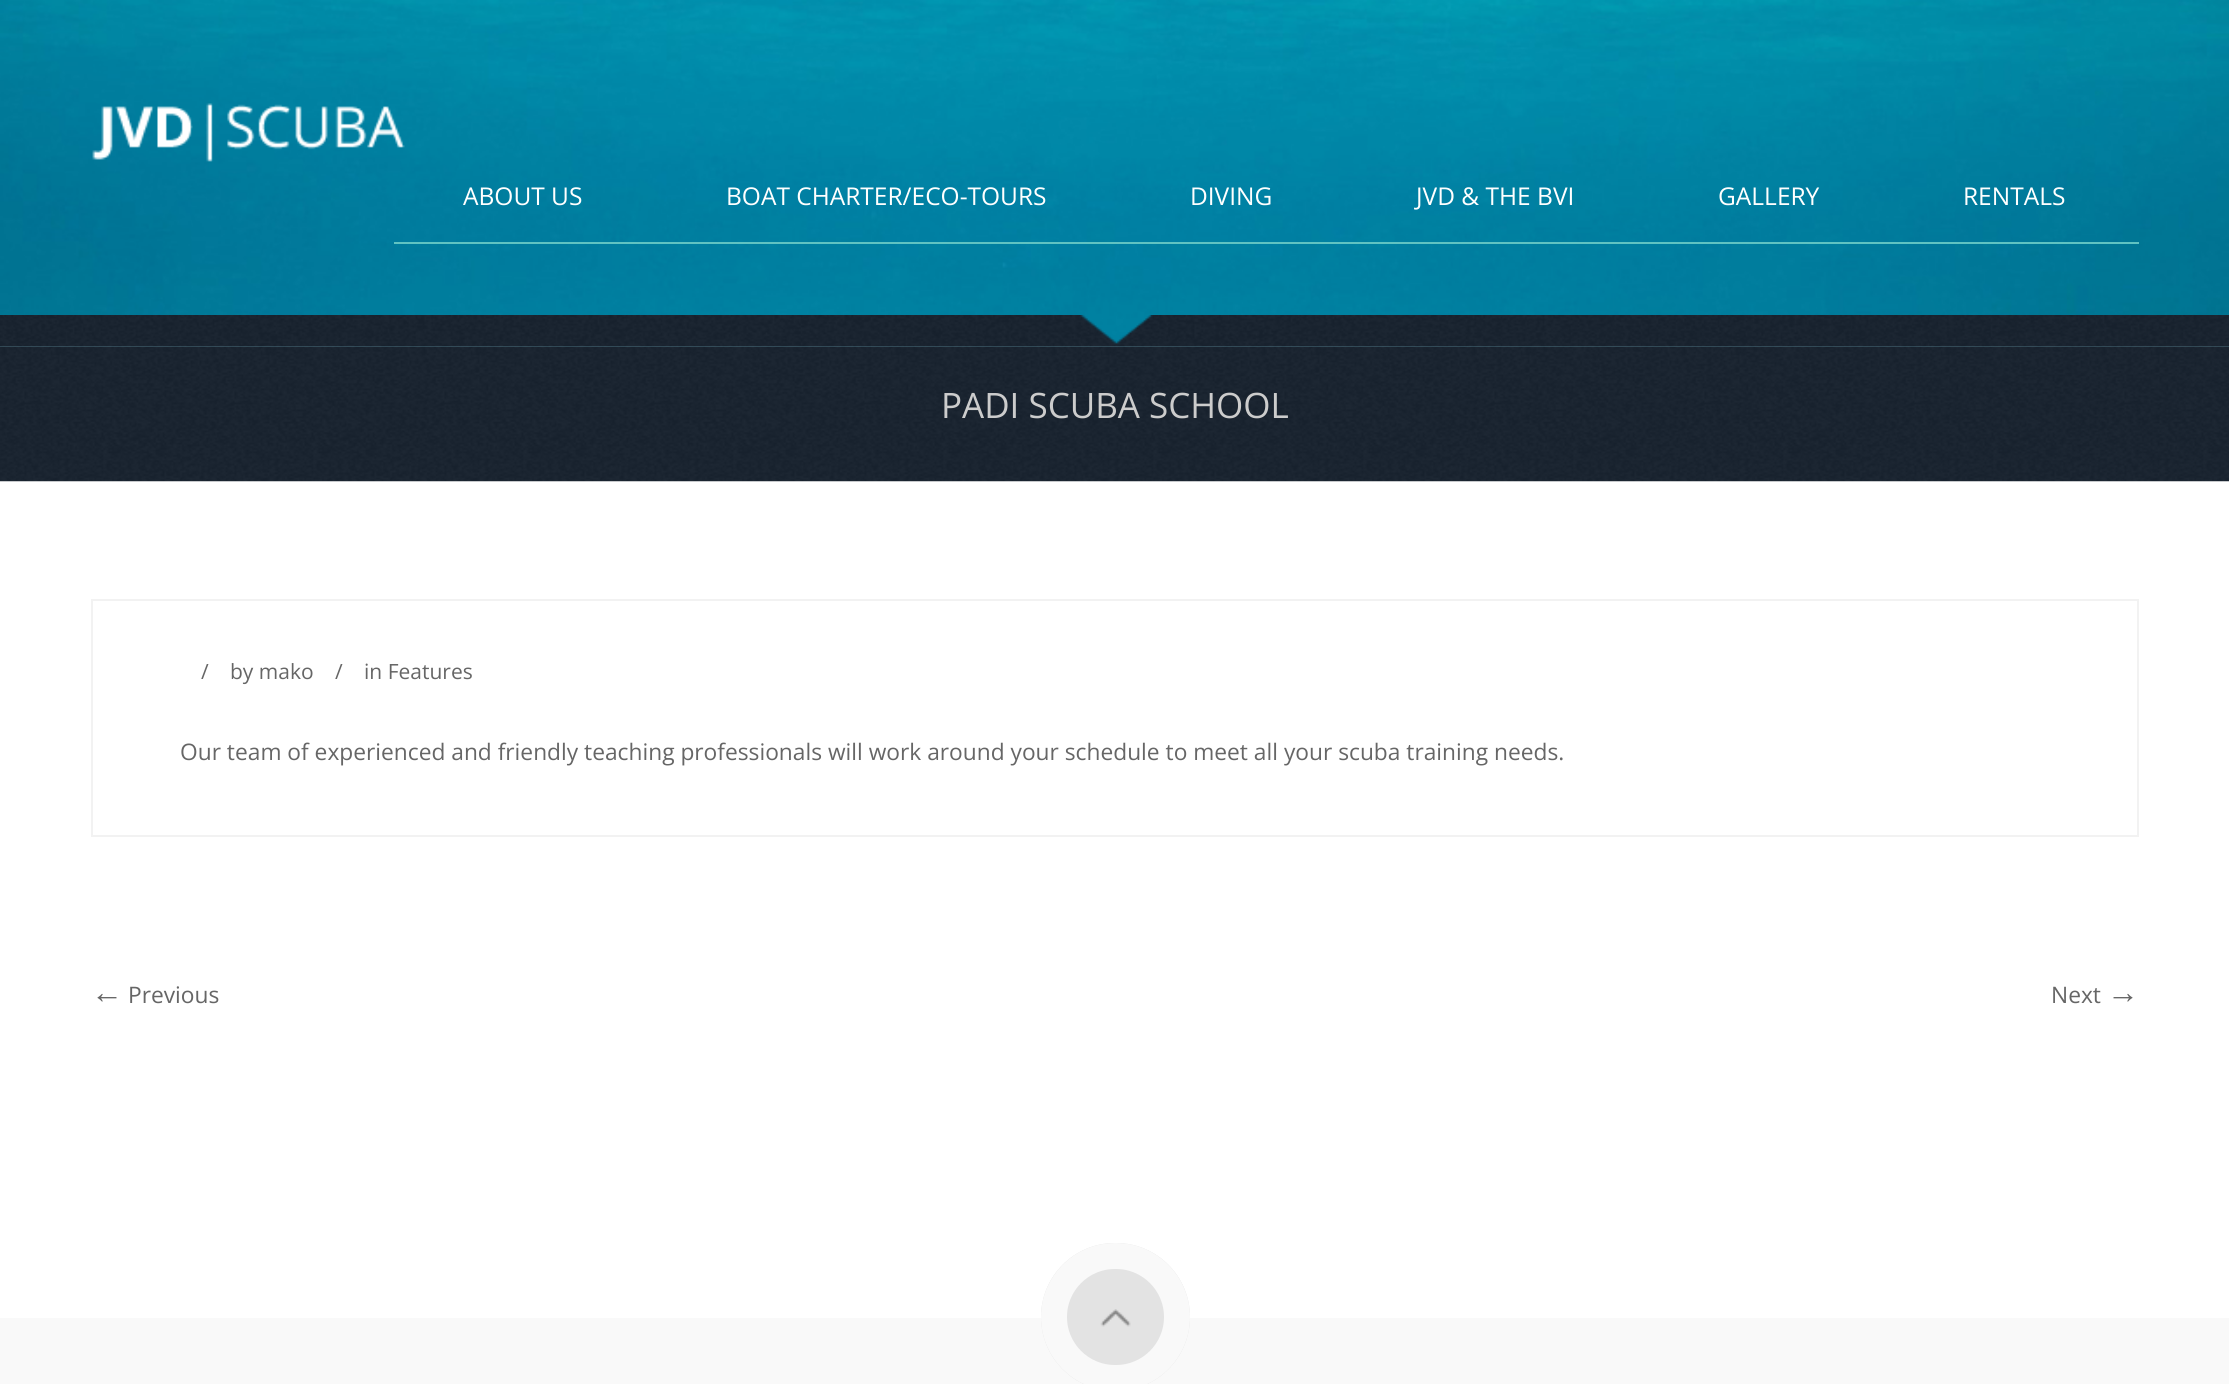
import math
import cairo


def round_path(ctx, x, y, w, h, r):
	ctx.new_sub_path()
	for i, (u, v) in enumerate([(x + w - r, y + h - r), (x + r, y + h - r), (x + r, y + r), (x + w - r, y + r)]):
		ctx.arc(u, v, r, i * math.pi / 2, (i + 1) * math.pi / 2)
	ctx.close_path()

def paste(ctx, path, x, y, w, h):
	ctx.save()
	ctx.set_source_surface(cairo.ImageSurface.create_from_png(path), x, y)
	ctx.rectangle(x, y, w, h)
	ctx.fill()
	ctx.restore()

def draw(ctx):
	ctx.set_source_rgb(1, 1, 1)
	ctx.paint()
	paste(ctx, 'media/1.png', 0, 0, 2229, 347)
	paste(ctx, 'media/2.png', 92, 103, 313, 59)
	ctx.set_source_rgb(0.376, 0.765, 0.761)
	ctx.rectangle(394, 242, 1745, 2)
	ctx.fill()
	ctx.select_font_face('Open Sans')
	ctx.set_font_size(24.5)
	ctx.set_source_rgb(1, 1, 1)
	for x, y, s in [
		(463, 205, 'ABOUT US'),
		(726, 205, 'BOAT CHARTER/ECO-TOURS'),
		(1190, 205, 'DIVING'),
		(1416, 205, 'JVD & THE BVI'),
		(1718, 205, 'GALLERY'),
		(1963, 205, 'RENTALS'),
	]:
		ctx.move_to(x, y)
		ctx.show_text(s)
	paste(ctx, 'media/4.png', 0, 346, 2229, 136)
	paste(ctx, 'media/3.png', 0, 315, 2229, 32)
	ctx.set_font_size(35)
	ctx.set_source_rgb(0.8, 0.8, 0.8)
	ctx.move_to(941, 418)
	ctx.show_text('PADI SCUBA SCHOOL')
	ctx.rectangle(92, 600, 2046, 236)
	ctx.set_source_rgb(0.949, 0.949, 0.949)
	ctx.stroke()
	ctx.set_font_size(21)
	ctx.set_source_rgb(0.4, 0.4, 0.4)
	for x, y, s in [
		(201, 679, '/'),
		(230, 679, 'by mako'),
		(335, 679, '/'),
		(364, 679, 'in Features'),
	]:
		ctx.move_to(x, y)
		ctx.show_text(s)
	ctx.set_font_size(22.75)
	ctx.move_to(180, 760)
	ctx.show_text('Our team of experienced and friendly teaching professionals will work around your schedule to meet all your scuba training needs.')
	ctx.select_font_face('Liberation Sans')
	ctx.set_font_size(32)
	ctx.move_to(91, 1003)
	ctx.show_text('←')
	ctx.select_font_face('Open Sans')
	ctx.set_font_size(22.75)
	ctx.move_to(128, 1003)
	ctx.show_text('Previous')
	ctx.move_to(2051, 1003)
	ctx.show_text('Next')
	ctx.select_font_face('Liberation Sans')
	ctx.set_font_size(32)
	ctx.move_to(2107, 1003)
	ctx.show_text('→')
	ctx.set_source_rgb(0.973, 0.973, 0.973)
	ctx.rectangle(0, 1318, 2229, 66)
	ctx.fill()
	ctx.set_source_rgb(0.89, 0.89, 0.89)
	round_path(ctx, 1041, 1243, 149, 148, 74)
	ctx.fill()
	paste(ctx, 'media/5.png', 1100, 1309, 31, 18)
	round_path(ctx, 1054, 1256, 123, 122, 61)
	ctx.set_source_rgb(0.973, 0.973, 0.973)
	ctx.set_line_width(26)
	ctx.stroke()


surface = cairo.ImageSurface(cairo.FORMAT_RGB24, 2229, 1384)
ctx = cairo.Context(surface)
options = cairo.FontOptions()
options.set_hint_metrics(cairo.HINT_METRICS_OFF)
options.set_hint_style(cairo.HINT_STYLE_NONE)
ctx.set_font_options(options)
ctx.set_miter_limit(4)
draw(ctx)
surface.write_to_png('image.png')
